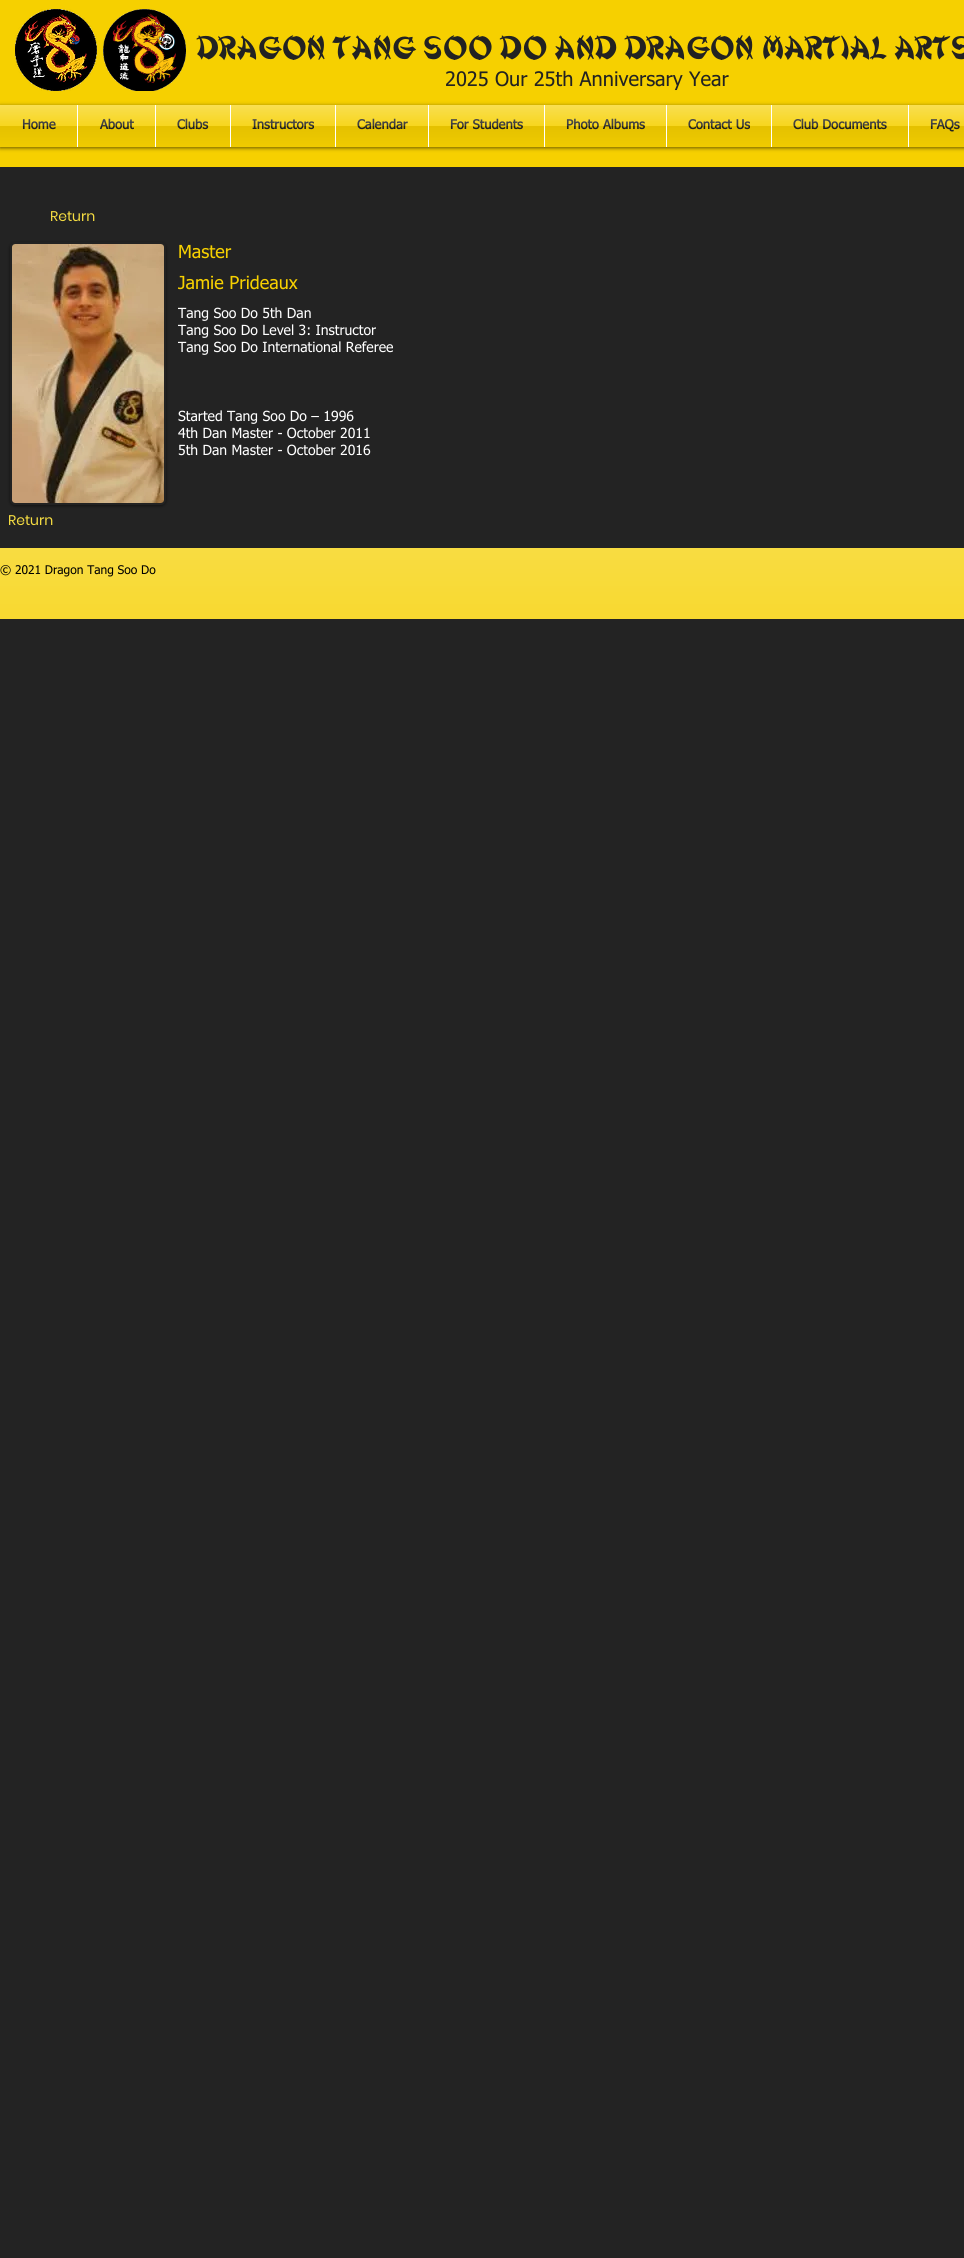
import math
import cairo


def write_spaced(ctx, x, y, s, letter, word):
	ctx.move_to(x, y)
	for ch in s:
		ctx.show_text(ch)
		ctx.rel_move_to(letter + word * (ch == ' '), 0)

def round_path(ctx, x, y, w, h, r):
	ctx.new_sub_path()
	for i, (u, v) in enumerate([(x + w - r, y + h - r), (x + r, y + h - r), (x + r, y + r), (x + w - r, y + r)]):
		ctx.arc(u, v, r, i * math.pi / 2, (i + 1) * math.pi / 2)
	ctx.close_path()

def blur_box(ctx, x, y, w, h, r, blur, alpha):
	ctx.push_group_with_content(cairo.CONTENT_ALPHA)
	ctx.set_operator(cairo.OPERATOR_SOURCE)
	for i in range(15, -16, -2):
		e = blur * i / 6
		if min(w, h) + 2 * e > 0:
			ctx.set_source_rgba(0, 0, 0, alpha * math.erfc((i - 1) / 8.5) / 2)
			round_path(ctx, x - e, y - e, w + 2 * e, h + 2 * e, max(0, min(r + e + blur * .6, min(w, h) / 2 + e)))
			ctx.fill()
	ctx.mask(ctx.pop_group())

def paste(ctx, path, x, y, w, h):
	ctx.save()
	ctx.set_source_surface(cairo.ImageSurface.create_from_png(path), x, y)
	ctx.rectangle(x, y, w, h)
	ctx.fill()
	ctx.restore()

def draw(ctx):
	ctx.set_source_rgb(0.137, 0.137, 0.137)
	ctx.paint()
	ctx.set_source_rgb(0.961, 0.816, 0)
	ctx.rectangle(0, 0, 964, 167)
	ctx.fill()
	paste(ctx, 'media/1.png', 15, 9, 82, 82)
	paste(ctx, 'media/2.png', 103, 9, 83, 82)
	ctx.select_font_face('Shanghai', cairo.FONT_SLANT_NORMAL, cairo.FONT_WEIGHT_BOLD)
	ctx.set_font_size(32)
	ctx.set_source_rgb(0.133, 0.133, 0.133)
	write_spaced(ctx, 196, 59, 'Dragon Tang Soo Do and Dragon Martial Arts', 1.6, 0)
	ctx.select_font_face('tahoma')
	ctx.set_font_size(20)
	ctx.move_to(445, 86)
	ctx.show_text('2025 Our 25th Anniversary Year')
	ctx.set_source_rgb(0, 0, 0)
	blur_box(ctx, 0, 106, 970, 42, 0, 2, 0.6)
	ctx.set_source_rgb(0.961, 0.816, 0)
	ctx.rectangle(0, 105, 77, 42)
	ctx.fill()
	ctx.select_font_face('tahoma', cairo.FONT_SLANT_NORMAL, cairo.FONT_WEIGHT_BOLD)
	ctx.set_font_size(13)
	ctx.set_source_rgb(0.133, 0.133, 0.133)
	ctx.move_to(22, 129)
	ctx.show_text('Home')
	paste(ctx, 'media/3.png', 0, 105, 77, 42)
	ctx.set_source_rgb(0.961, 0.816, 0)
	ctx.rectangle(78, 105, 77, 42)
	ctx.fill()
	ctx.set_source_rgb(1, 1, 1)
	ctx.rectangle(77, 105, 1, 42)
	ctx.fill()
	ctx.set_source_rgb(0.133, 0.133, 0.133)
	ctx.move_to(100, 129)
	ctx.show_text('About')
	paste(ctx, 'media/4.png', 78, 105, 77, 42)
	ctx.set_source_rgb(0.961, 0.816, 0)
	ctx.rectangle(156, 105, 74, 42)
	ctx.fill()
	ctx.set_source_rgb(1, 1, 1)
	ctx.rectangle(155, 105, 1, 42)
	ctx.fill()
	ctx.set_source_rgb(0.133, 0.133, 0.133)
	ctx.move_to(177, 129)
	ctx.show_text('Clubs')
	paste(ctx, 'media/5.png', 156, 105, 74, 42)
	ctx.set_source_rgb(0.961, 0.816, 0)
	ctx.rectangle(231, 105, 104, 42)
	ctx.fill()
	ctx.set_source_rgb(1, 1, 1)
	ctx.rectangle(230, 105, 1, 42)
	ctx.fill()
	ctx.set_source_rgb(0.133, 0.133, 0.133)
	ctx.move_to(252, 129)
	ctx.show_text('Instructors')
	paste(ctx, 'media/6.png', 231, 105, 104, 42)
	ctx.set_source_rgb(0.961, 0.816, 0)
	ctx.rectangle(336, 105, 92, 42)
	ctx.fill()
	ctx.set_source_rgb(1, 1, 1)
	ctx.rectangle(335, 105, 1, 42)
	ctx.fill()
	ctx.set_source_rgb(0.133, 0.133, 0.133)
	ctx.move_to(357, 129)
	ctx.show_text('Calendar')
	paste(ctx, 'media/7.png', 336, 105, 92, 42)
	ctx.set_source_rgb(0.961, 0.816, 0)
	ctx.rectangle(429, 105, 115, 42)
	ctx.fill()
	ctx.set_source_rgb(1, 1, 1)
	ctx.rectangle(428, 105, 1, 42)
	ctx.fill()
	ctx.set_source_rgb(0.133, 0.133, 0.133)
	ctx.move_to(450, 129)
	ctx.show_text('For Students')
	paste(ctx, 'media/8.png', 429, 105, 115, 42)
	ctx.set_source_rgb(0.961, 0.816, 0)
	ctx.rectangle(545, 105, 121, 42)
	ctx.fill()
	ctx.set_source_rgb(1, 1, 1)
	ctx.rectangle(544, 105, 1, 42)
	ctx.fill()
	ctx.set_source_rgb(0.133, 0.133, 0.133)
	ctx.move_to(566, 129)
	ctx.show_text('Photo Albums')
	paste(ctx, 'media/9.png', 545, 105, 121, 42)
	ctx.set_source_rgb(0.961, 0.816, 0)
	ctx.rectangle(667, 105, 104, 42)
	ctx.fill()
	ctx.set_source_rgb(1, 1, 1)
	ctx.rectangle(666, 105, 1, 42)
	ctx.fill()
	ctx.set_source_rgb(0.133, 0.133, 0.133)
	ctx.move_to(688, 129)
	ctx.show_text('Contact Us')
	paste(ctx, 'media/10.png', 667, 105, 104, 42)
	ctx.set_source_rgb(0.961, 0.816, 0)
	ctx.rectangle(772, 105, 136, 42)
	ctx.fill()
	ctx.set_source_rgb(1, 1, 1)
	ctx.rectangle(771, 105, 1, 42)
	ctx.fill()
	ctx.set_source_rgb(0.133, 0.133, 0.133)
	ctx.move_to(793, 129)
	ctx.show_text('Club Documents')
	paste(ctx, 'media/11.png', 772, 105, 136, 42)
	ctx.set_source_rgb(0.961, 0.816, 0)
	ctx.rectangle(909, 105, 55, 42)
	ctx.fill()
	ctx.set_source_rgb(1, 1, 1)
	ctx.rectangle(908, 105, 1, 42)
	ctx.fill()
	ctx.set_source_rgb(0.133, 0.133, 0.133)
	ctx.move_to(930, 129)
	ctx.show_text('FAQs')
	paste(ctx, 'media/12.png', 909, 105, 55, 42)
	ctx.select_font_face('Poppins')
	ctx.set_font_size(14)
	ctx.set_source_rgb(0.961, 0.867, 0.259)
	ctx.move_to(50, 221)
	ctx.show_text('Return')
	ctx.set_source_rgb(0, 0, 0)
	blur_box(ctx, 10, 243, 156, 263, 5, 1.5, 0.5)
	ctx.set_source_rgb(0.133, 0.133, 0.133)
	round_path(ctx, 10, 242, 156, 263, 5)
	ctx.fill()
	paste(ctx, 'media/13.png', 12, 244, 152, 259)
	ctx.select_font_face('tahoma')
	ctx.set_font_size(18)
	ctx.set_source_rgb(0.961, 0.816, 0)
	ctx.move_to(178, 258)
	ctx.show_text('Master')
	ctx.move_to(178, 289)
	ctx.show_text('Jamie Prideaux')
	ctx.set_font_size(14)
	ctx.set_source_rgb(1, 1, 1)
	for x, y, s in [
		(178, 318, 'Tang Soo Do 5th Dan'),
		(178, 335, 'Tang Soo Do Level 3: Instructor'),
		(178, 352, 'Tang Soo Do International Referee'),
		(178, 421, 'Started Tang Soo Do – 1996'),
		(178, 438, '4th Dan Master - October 2011'),
		(178, 455, '5th Dan Master - October 2016'),
	]:
		ctx.move_to(x, y)
		ctx.show_text(s)
	ctx.select_font_face('Poppins')
	ctx.set_source_rgb(0.961, 0.867, 0.259)
	ctx.move_to(8, 525)
	ctx.show_text('Return')
	ctx.set_source_rgb(0.961, 0.816, 0)
	ctx.rectangle(0, 548, 964, 71)
	ctx.fill()
	paste(ctx, 'media/14.png', 0, 548, 964, 71)
	ctx.select_font_face('tahoma')
	ctx.set_font_size(12)
	ctx.set_source_rgb(0, 0, 0)
	ctx.move_to(0, 574)
	ctx.show_text('© 2021 Dragon Tang Soo Do')


surface = cairo.ImageSurface(cairo.FORMAT_RGB24, 964, 2258)
ctx = cairo.Context(surface)
options = cairo.FontOptions()
options.set_hint_metrics(cairo.HINT_METRICS_OFF)
options.set_hint_style(cairo.HINT_STYLE_NONE)
ctx.set_font_options(options)
ctx.set_miter_limit(4)
draw(ctx)
surface.write_to_png('image.png')
